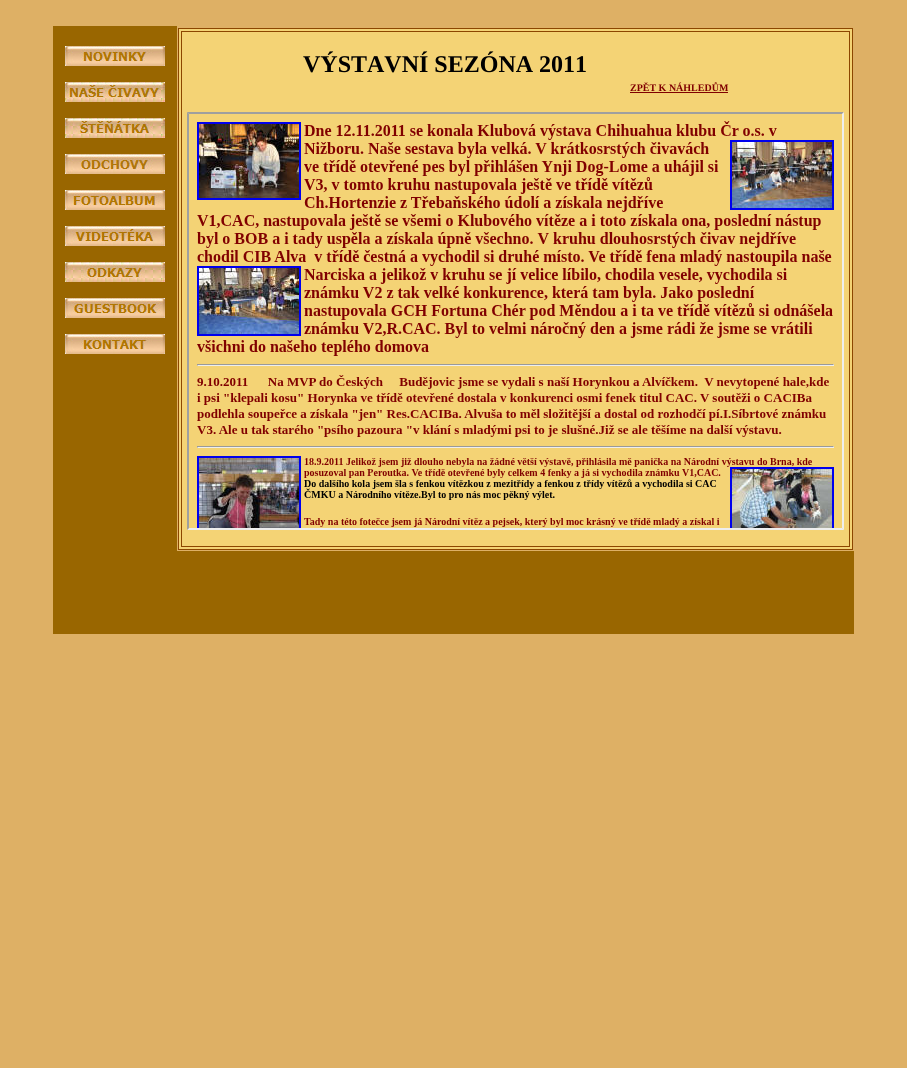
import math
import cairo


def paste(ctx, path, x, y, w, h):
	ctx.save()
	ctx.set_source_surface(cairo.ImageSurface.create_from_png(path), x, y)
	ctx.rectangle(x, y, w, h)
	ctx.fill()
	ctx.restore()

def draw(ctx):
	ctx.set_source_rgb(0.871, 0.69, 0.396)
	ctx.paint()
	ctx.set_source_rgb(0.6, 0.4, 0)
	ctx.rectangle(53, 26, 124, 608)
	ctx.fill()
	paste(ctx, 'media/1.png', 65, 46, 100, 20)
	paste(ctx, 'media/2.png', 65, 82, 100, 20)
	paste(ctx, 'media/3.png', 65, 118, 100, 20)
	paste(ctx, 'media/4.png', 65, 154, 100, 20)
	paste(ctx, 'media/5.png', 65, 190, 100, 20)
	paste(ctx, 'media/6.png', 65, 226, 100, 20)
	paste(ctx, 'media/7.png', 65, 262, 100, 20)
	paste(ctx, 'media/8.png', 65, 298, 100, 20)
	paste(ctx, 'media/9.png', 65, 334, 100, 20)
	ctx.set_source_rgb(0.957, 0.827, 0.459)
	ctx.rectangle(178.5, 28.5, 674, 521)
	ctx.fill_preserve()
	ctx.set_source_rgb(0.549, 0.275, 0)
	ctx.set_line_width(1)
	ctx.stroke()
	ctx.rectangle(181.5, 31.5, 668, 515)
	ctx.stroke()
	ctx.select_font_face('Liberation Serif', cairo.FONT_SLANT_NORMAL, cairo.FONT_WEIGHT_BOLD)
	ctx.set_font_size(24)
	ctx.set_source_rgb(0, 0, 0)
	ctx.move_to(303, 72)
	ctx.show_text('VÝSTAVNÍ SEZÓNA 2011')
	ctx.set_font_size(10)
	ctx.set_source_rgb(0.502, 0, 0)
	ctx.move_to(630, 91)
	ctx.show_text('ZPĚT K NÁHLEDŮM')
	ctx.rectangle(630, 92, 98, 1)
	ctx.fill()
	ctx.set_source_rgb(0.624, 0.624, 0.624)
	ctx.new_path()
	ctx.move_to(187, 112)
	ctx.line_to(844, 112)
	ctx.line_to(842, 114)
	ctx.line_to(189, 114)
	ctx.close_path()
	ctx.fill()
	ctx.set_source_rgb(0.933, 0.933, 0.933)
	ctx.new_path()
	ctx.move_to(844, 112)
	ctx.line_to(844, 530)
	ctx.line_to(842, 528)
	ctx.line_to(842, 114)
	ctx.close_path()
	ctx.fill()
	ctx.new_path()
	ctx.move_to(844, 530)
	ctx.line_to(187, 530)
	ctx.line_to(189, 528)
	ctx.line_to(842, 528)
	ctx.close_path()
	ctx.fill()
	ctx.set_source_rgb(0.624, 0.624, 0.624)
	ctx.new_path()
	ctx.move_to(187, 530)
	ctx.line_to(187, 112)
	ctx.line_to(189, 114)
	ctx.line_to(189, 528)
	ctx.close_path()
	ctx.fill()
	paste(ctx, 'media/10.png', 197, 121, 637, 407)
	ctx.set_source_rgb(0.6, 0.4, 0)
	ctx.rectangle(177, 551, 677, 83)
	ctx.fill()


surface = cairo.ImageSurface(cairo.FORMAT_RGB24, 907, 1068)
ctx = cairo.Context(surface)
options = cairo.FontOptions()
options.set_hint_metrics(cairo.HINT_METRICS_OFF)
options.set_hint_style(cairo.HINT_STYLE_NONE)
ctx.set_font_options(options)
ctx.set_miter_limit(4)
draw(ctx)
surface.write_to_png('image.png')
